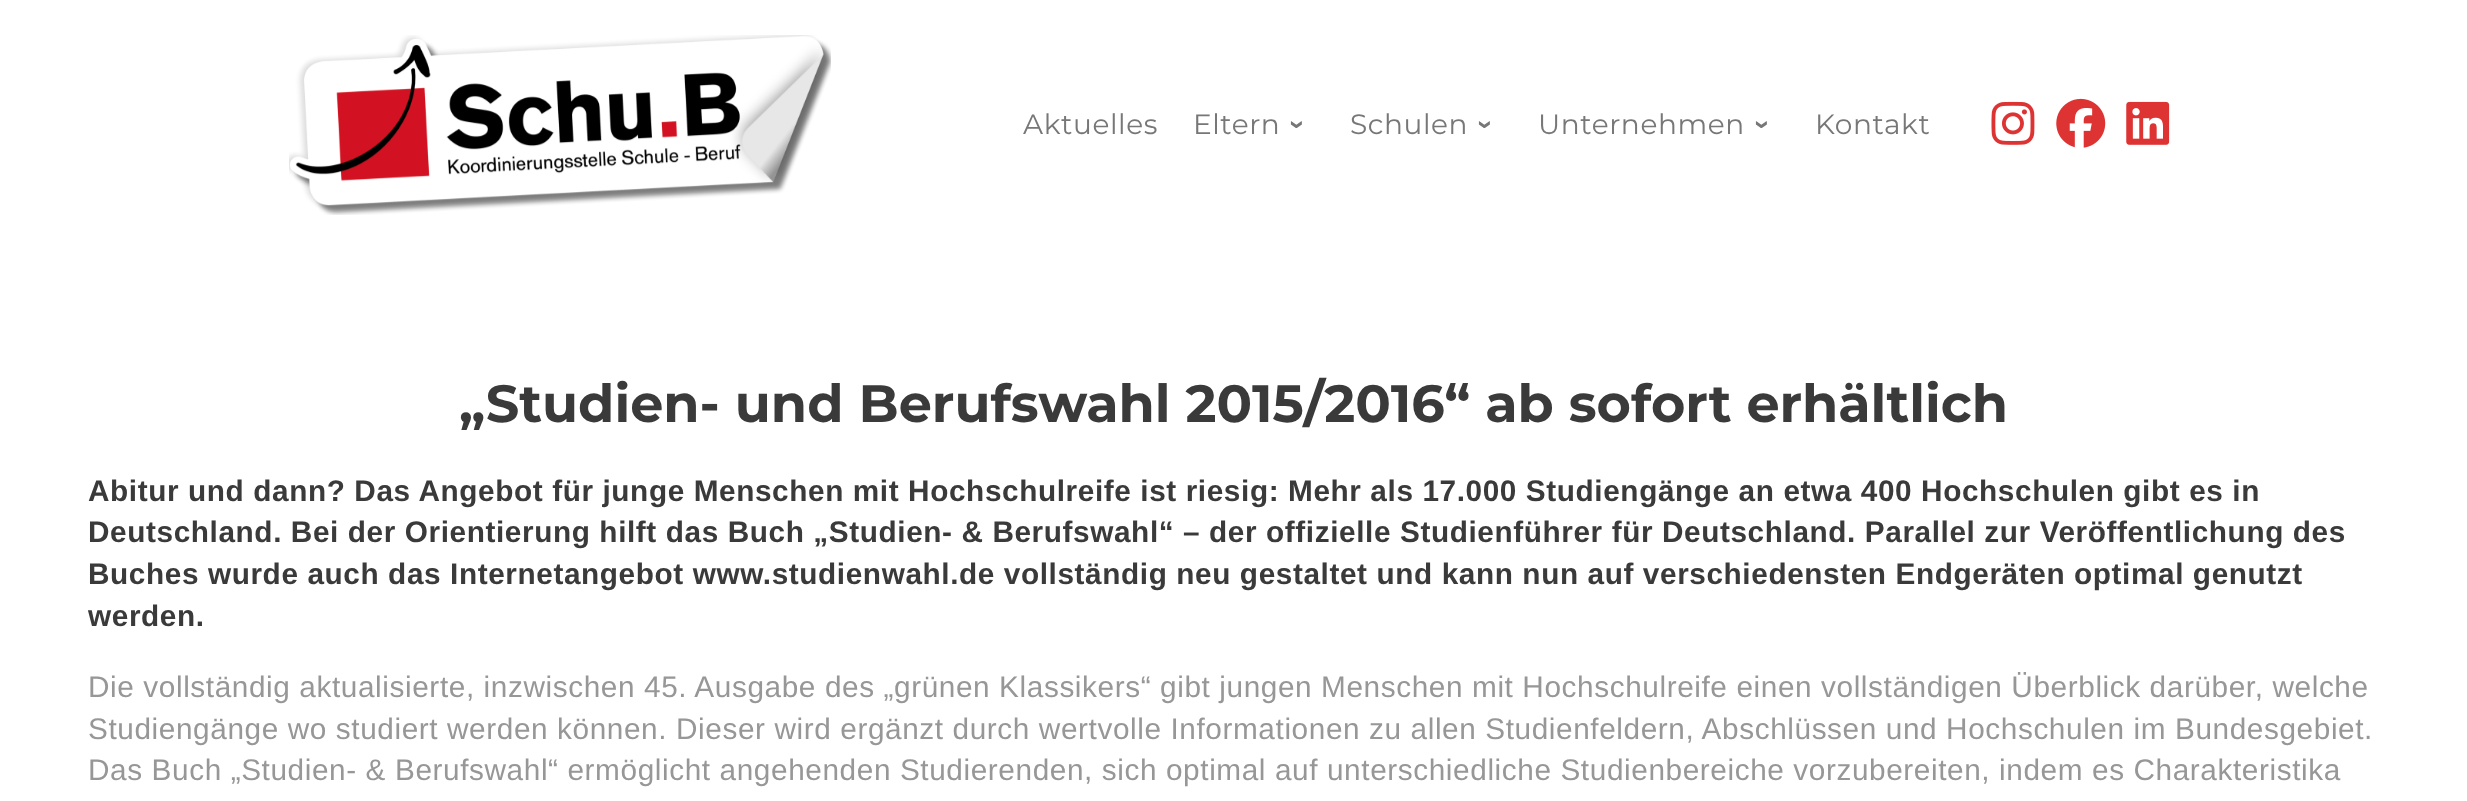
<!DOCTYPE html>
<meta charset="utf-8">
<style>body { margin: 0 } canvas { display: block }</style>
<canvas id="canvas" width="2467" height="801"></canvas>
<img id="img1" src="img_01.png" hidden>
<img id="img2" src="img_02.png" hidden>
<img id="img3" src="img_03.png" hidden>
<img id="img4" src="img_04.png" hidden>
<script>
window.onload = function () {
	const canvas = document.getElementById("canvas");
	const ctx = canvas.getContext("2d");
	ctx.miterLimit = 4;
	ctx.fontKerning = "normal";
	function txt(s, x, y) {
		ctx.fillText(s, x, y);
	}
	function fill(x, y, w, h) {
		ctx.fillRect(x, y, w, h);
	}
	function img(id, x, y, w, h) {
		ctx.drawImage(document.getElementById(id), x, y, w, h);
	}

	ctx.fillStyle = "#FFFFFF";
	fill(0, 0, 2467, 801);
	img("img1", 289, 35, 542, 180);
	img("img2", 1991, 101, 44, 44);
	img("img3", 2056, 98, 50, 50);
	img("img4", 2126, 101, 44, 44);
	ctx.letterSpacing = "0.6px";
	ctx.font = "100 28px Montserrat";
	ctx.fillStyle = "#777777";
	txt("Aktuelles", 1023, 134);
	txt("Eltern", 1193, 134);
	ctx.font = "bold 28px Liberation Sans";
	ctx.save();
	ctx.translate(1289, 120);
	ctx.rotate(90 * Math.PI / 180);
	ctx.fillText("›", 0, 0);
	ctx.restore();
	ctx.font = "100 28px Montserrat";
	txt("Schulen", 1350, 134);
	ctx.font = "bold 28px Liberation Sans";
	ctx.save();
	ctx.translate(1477, 120);
	ctx.rotate(90 * Math.PI / 180);
	ctx.fillText("›", 0, 0);
	ctx.restore();
	ctx.font = "100 28px Montserrat";
	txt("Unternehmen", 1538, 134);
	ctx.font = "bold 28px Liberation Sans";
	ctx.save();
	ctx.translate(1754, 120);
	ctx.rotate(90 * Math.PI / 180);
	ctx.fillText("›", 0, 0);
	ctx.restore();
	ctx.font = "100 28px Montserrat";
	txt("Kontakt", 1815, 134);
	ctx.letterSpacing = "0px";
	ctx.font = "bold 52.5px Montserrat";
	ctx.fillStyle = "#3A3A3A";
	txt("„Studien- und Berufswahl 2015/2016“ ab sofort erhältlich", 459, 422);
	ctx.letterSpacing = "0.6px";
	ctx.font = "bold 29.75px Liberation Sans";
	txt("Abitur und dann? Das Angebot für junge Menschen mit Hochschulreife ist riesig: Mehr als 17.000 Studiengänge an etwa 400 Hochschulen gibt es in", 88, 501);
	txt("Deutschland. Bei der Orientierung hilft das Buch „Studien- & Berufswahl“ – der offizielle Studienführer für Deutschland. Parallel zur Veröffentlichung des", 88, 542);
	txt("Buches wurde auch das Internetangebot www.studienwahl.de vollständig neu gestaltet und kann nun auf verschiedensten Endgeräten optimal genutzt", 88, 584);
	txt("werden.", 88, 626);
	ctx.font = "29.75px Liberation Sans";
	ctx.fillStyle = "#989797";
	txt("Die vollständig aktualisierte, inzwischen 45. Ausgabe des „grünen Klassikers“ gibt jungen Menschen mit Hochschulreife einen vollständigen Überblick darüber, welche", 88, 697);
	txt("Studiengänge wo studiert werden können. Dieser wird ergänzt durch wertvolle Informationen zu allen Studienfeldern, Abschlüssen und Hochschulen im Bundesgebiet.", 88, 739);
	txt("Das Buch „Studien- & Berufswahl“ ermöglicht angehenden Studierenden, sich optimal auf unterschiedliche Studienbereiche vorzubereiten, indem es Charakteristika", 88, 780);
};
</script>
